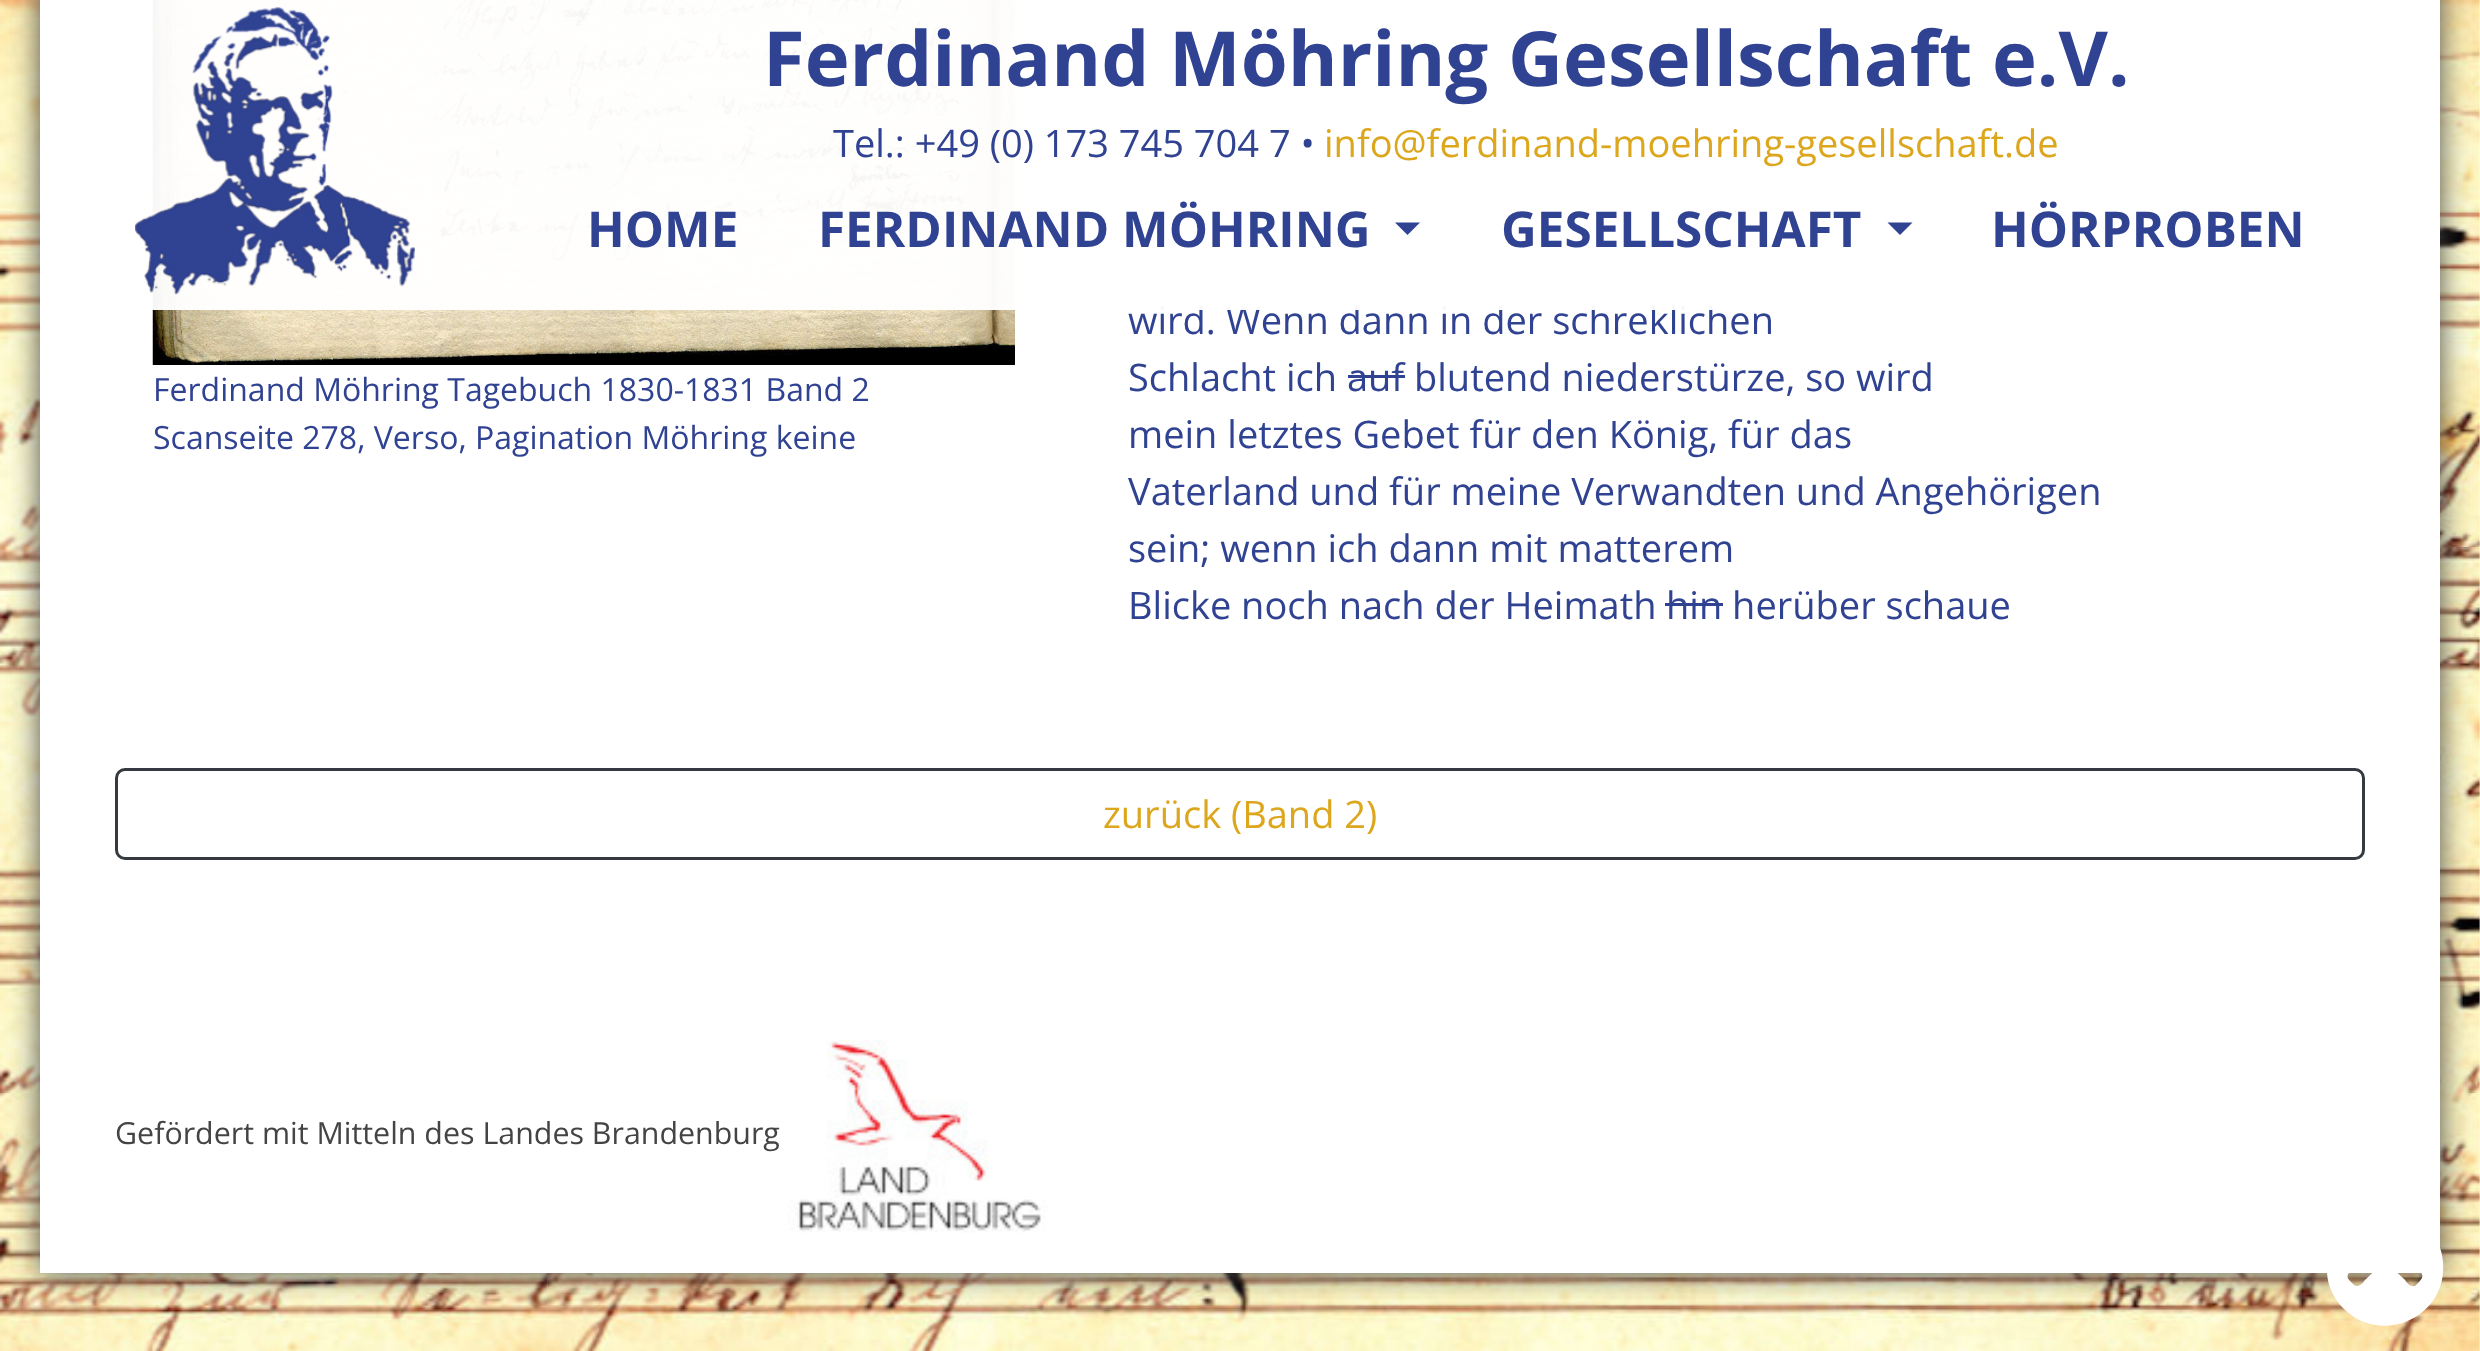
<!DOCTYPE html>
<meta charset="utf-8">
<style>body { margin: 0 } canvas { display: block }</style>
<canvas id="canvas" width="2480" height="1351"></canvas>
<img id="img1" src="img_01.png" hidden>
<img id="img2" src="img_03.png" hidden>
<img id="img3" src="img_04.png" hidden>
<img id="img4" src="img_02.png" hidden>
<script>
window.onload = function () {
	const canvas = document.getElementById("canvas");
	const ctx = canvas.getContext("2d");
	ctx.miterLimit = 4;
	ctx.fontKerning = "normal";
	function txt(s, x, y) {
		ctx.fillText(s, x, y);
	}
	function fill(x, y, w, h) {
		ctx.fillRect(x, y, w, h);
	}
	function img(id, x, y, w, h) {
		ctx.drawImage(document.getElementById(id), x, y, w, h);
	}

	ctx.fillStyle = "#FFFFFF";
	fill(0, 0, 2480, 1351);
	img("img1", 0, 0, 2480, 1351);
	ctx.fillStyle = "#444444";
	ctx.filter = "blur(15px)";
	ctx.beginPath();
	ctx.rect(40, -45, 2400, 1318);
	ctx.fill();
	ctx.filter = "none";
	ctx.fillStyle = "#FFFFFF";
	fill(40, 0, 2400, 1273);
	ctx.fillStyle = "#304292";
	ctx.beginPath();
	ctx.moveTo(1887.5, 222.5);
	ctx.lineTo(1912.5, 222.5);
	ctx.lineTo(1900, 235);
	ctx.closePath();
	ctx.fill();
	img("img2", 152, 0, 863, 365);
	fill(1348, 375, 57, 3);
	fill(1665, 603, 58, 3);
	ctx.beginPath();
	ctx.roundRect(116.5, 769.5, 2247, 89, 8.5);
	ctx.strokeStyle = "#343A40";
	ctx.lineWidth = 3;
	ctx.stroke();
	img("img3", 788, 1040, 259, 193);
	ctx.fillStyle = "#FFFFFF";
	ctx.beginPath();
	ctx.moveTo(2344, 1309);
	ctx.bezierCurveTo(2334, 1299, 2328, 1287, 2327, 1273);
	ctx.bezierCurveTo(2322, 1219, 2387, 1188, 2426, 1226);
	ctx.bezierCurveTo(2436, 1236, 2442, 1248, 2443, 1262);
	ctx.bezierCurveTo(2448, 1316, 2383, 1347, 2344, 1309);
	ctx.closePath();
	ctx.moveTo(2381, 1241);
	ctx.lineTo(2349, 1273);
	ctx.bezierCurveTo(2345, 1277, 2350, 1281, 2353, 1284);
	ctx.bezierCurveTo(2358, 1289, 2362, 1284, 2365, 1280);
	ctx.lineTo(2385, 1261);
	ctx.lineTo(2405, 1280);
	ctx.bezierCurveTo(2407, 1283, 2410, 1287, 2415, 1286);
	ctx.lineTo(2419, 1282);
	ctx.bezierCurveTo(2426, 1275, 2421, 1273, 2415, 1267);
	ctx.lineTo(2394, 1246);
	ctx.bezierCurveTo(2391, 1243, 2386, 1236, 2381, 1241);
	ctx.closePath();
	ctx.fill();
	ctx.font = "bold 49.4px Open Sans";
	ctx.fillStyle = "#304292";
	txt("HÖRPROBEN", 1991, 247);
	ctx.font = "32px Open Sans";
	txt("Ferdinand Möhring Tagebuch 1830-1831 Band 2", 153, 401);
	txt("Scanseite 278, Verso, Pagination Möhring keine", 153, 449);
	ctx.font = "38px Open Sans";
	txt("wird. Wenn dann in der schreklichen", 1128, 334);
	ctx.fillStyle = "rgba(255, 255, 255, 0.96)";
	fill(152, 0, 1561, 310);
	ctx.font = "bold 49.4px Open Sans";
	ctx.fillStyle = "#304292";
	txt("GESELLSCHAFT", 1501, 247);
	ctx.beginPath();
	ctx.moveTo(1395, 222.5);
	ctx.lineTo(1420, 222.5);
	ctx.lineTo(1407.5, 235);
	ctx.closePath();
	ctx.fill();
	txt("FERDINAND MÖHRING", 818, 247);
	txt("HOME", 587, 247);
	ctx.font = "38px Open Sans";
	ctx.fillStyle = "#DCA71D";
	txt("info@ferdinand-moehring-gesellschaft.de", 1324, 157);
	ctx.fillStyle = "#304292";
	txt("Tel.: +49 (0) 173 745 704 7 •", 833, 157);
	ctx.font = "bold 76px Open Sans";
	txt("Ferdinand Möhring Gesellschaft e.V.", 763, 86);
	img("img4", 135, 7, 280, 288);
	ctx.font = "38px Open Sans";
	txt("Schlacht ich auf blutend niederstürze, so wird", 1128, 391);
	txt("mein letztes Gebet für den König, für das", 1128, 448);
	txt("Vaterland und für meine Verwandten und Angehörigen", 1128, 505);
	txt("sein; wenn ich dann mit matterem", 1128, 562);
	txt("Blicke noch nach der Heimath", 1128, 619);
	txt("hin herüber schaue", 1666, 619);
	ctx.fillStyle = "#DCA71D";
	txt("zurück (Band 2)", 1103, 828);
	ctx.font = "30.4px Open Sans";
	ctx.fillStyle = "#444444";
	txt("Gefördert mit Mitteln des Landes Brandenburg", 115, 1144);
};
</script>
